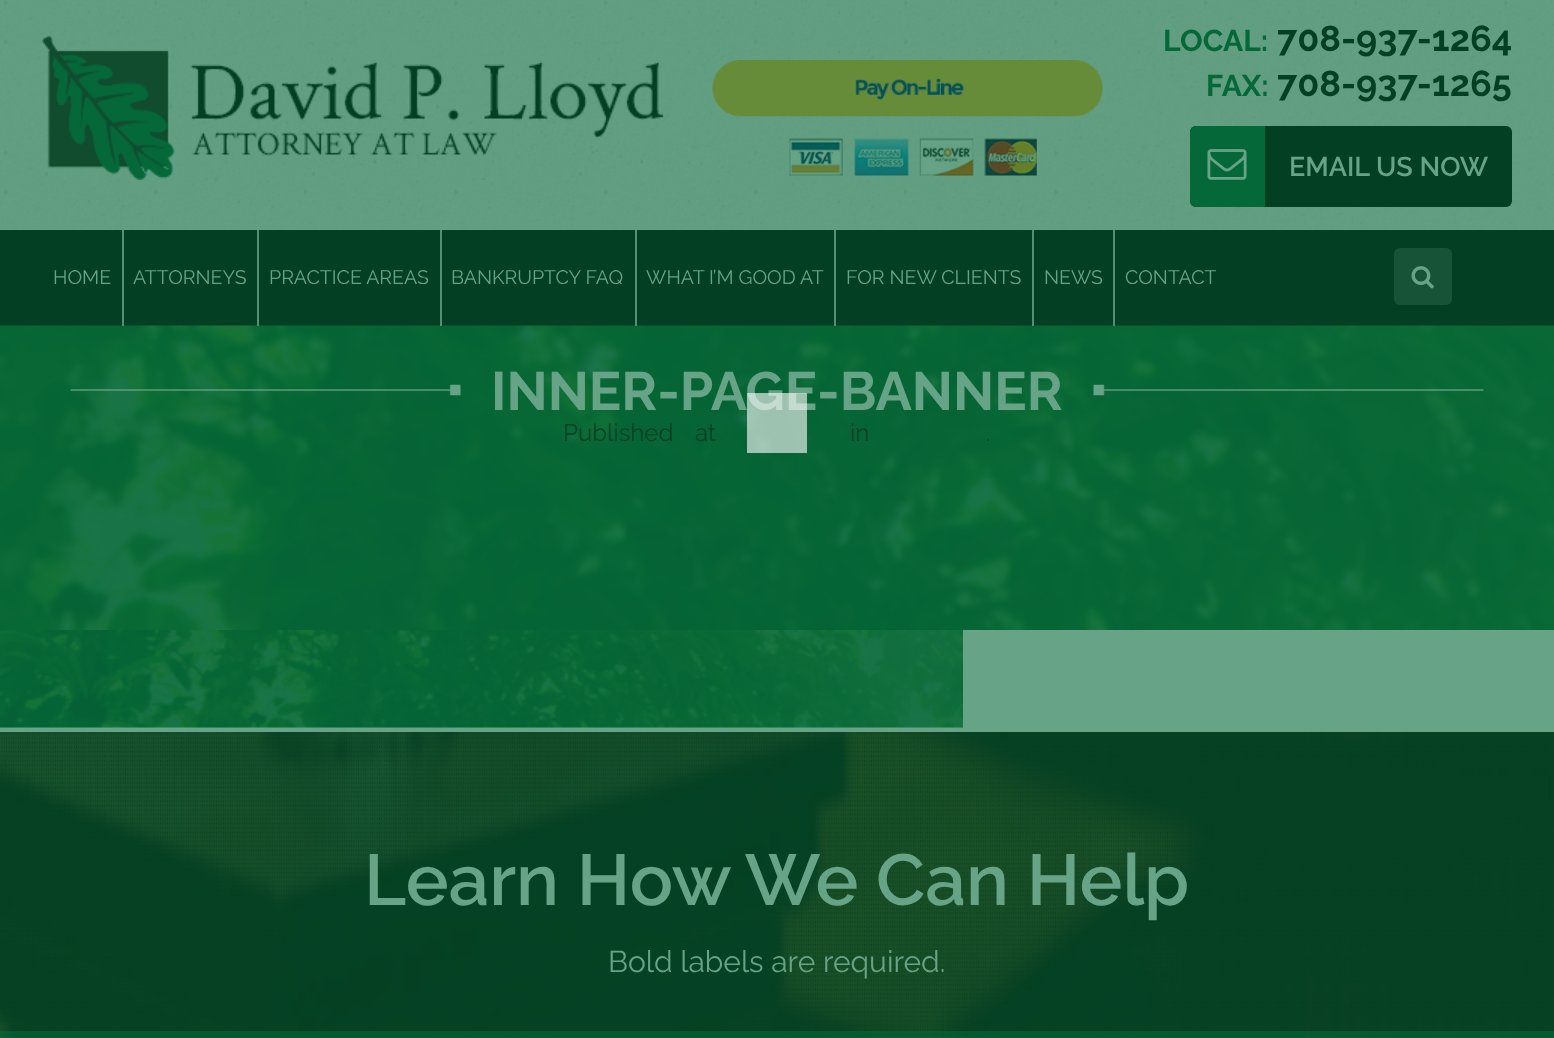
<!DOCTYPE html>
<meta charset="utf-8">
<style>body { margin: 0 } canvas { display: block }</style>
<canvas id="canvas" width="1554" height="1038"></canvas>
<img id="img1" src="img_01.png" hidden>
<img id="img2" src="img_02.png" hidden>
<img id="img3" src="img_03.png" hidden>
<img id="img4" src="img_04.png" hidden>
<img id="img5" src="img_06.png" hidden>
<img id="img6" src="img_05.png" hidden>
<img id="img7" src="img_07.png" hidden>
<img id="img8" src="img_08.png" hidden>
<img id="img9" src="img_09.png" hidden>
<img id="img10" src="img_10.png" hidden>
<script>
window.onload = function () {
	const canvas = document.getElementById("canvas");
	const ctx = canvas.getContext("2d");
	ctx.miterLimit = 4;
	ctx.fontKerning = "normal";
	function txt(s, x, y) {
		ctx.fillText(s, x, y);
	}
	function fill(x, y, w, h) {
		ctx.fillRect(x, y, w, h);
	}
	function round(x, y, w, h, r) {
		ctx.beginPath();
		ctx.roundRect(x, y, w, h, r);
		ctx.fill();
	}
	function img(id, x, y, w, h) {
		ctx.drawImage(document.getElementById(id), x, y, w, h);
	}

	ctx.fillStyle = "#67A386";
	fill(0, 0, 1554, 1038);
	img("img1", 0, 0, 1554, 230);
	img("img2", 42, 36, 627, 144);
	img("img3", 712, 60, 391, 116);
	ctx.fillStyle = "#033F23";
	round(1190, 126, 322, 81, 6);
	ctx.fillStyle = "#056839";
	ctx.beginPath();
	ctx.roundRect(1190, 126, 75, 81, [6, 0, 0, 6]);
	ctx.fill();
	img("img4", 1207, 149, 40, 31);
	ctx.fillStyle = "#033F23";
	fill(0, 230, 1554, 96);
	img("img5", 0, 325, 1554, 305);
	ctx.fillStyle = "#538F72";
	fill(122, 230, 2, 96);
	fill(257, 230, 2, 96);
	fill(440, 230, 2, 96);
	fill(635, 230, 2, 96);
	fill(834, 230, 2, 96);
	fill(1032, 230, 2, 96);
	fill(1113, 230, 2, 96);
	ctx.fillStyle = "#175337";
	round(1394, 248, 58, 57, 6);
	img("img6", 1411, 266, 23, 23);
	img("img7", 70, 384, 391, 12);
	img("img8", 1093, 384, 391, 12);
	img("img9", 0, 630, 963, 98);
	img("img10", 0, 732, 1554, 306);
	ctx.fillStyle = "rgba(255, 255, 255, 0.61)";
	fill(747, 413, 20, 21);
	fill(767, 413, 19, 21);
	fill(786, 413, 21, 21);
	fill(747, 434, 20, 19);
	fill(767, 434, 19, 19);
	fill(786, 434, 21, 19);
	ctx.fillStyle = "rgba(5, 104, 57, 0.61)";
	fill(0, 1031, 1554, 7);
	ctx.font = "bold 30px Raleway";
	ctx.fillStyle = "#056839";
	txt("LOCAL:", 1163, 51);
	ctx.font = "bold 36px Raleway";
	ctx.fillStyle = "#033F23";
	txt("708-937-1264", 1277, 51);
	ctx.font = "bold 30px Raleway";
	ctx.fillStyle = "#056839";
	txt("FAX:", 1206, 96);
	ctx.font = "bold 36px Raleway";
	ctx.fillStyle = "#033F23";
	txt("708-937-1265", 1277, 96);
	ctx.font = "600 27px Raleway";
	ctx.fillStyle = "#67A386";
	txt("EMAIL US NOW", 1289, 176);
	ctx.font = "19.5px Raleway";
	txt("HOME", 53, 284);
	txt("ATTORNEYS", 133, 284);
	txt("PRACTICE AREAS", 269, 284);
	ctx.fillStyle = "rgba(3, 63, 35, 0.5)";
	ctx.beginPath();
	ctx.moveTo(418.5, 273);
	ctx.lineTo(430.5, 273);
	ctx.lineTo(424.5, 279);
	ctx.closePath();
	ctx.fill();
	ctx.fillStyle = "#67A386";
	txt("BANKRUPTCY FAQ", 451, 284);
	txt("WHAT I’M GOOD AT", 646, 284);
	txt("FOR NEW CLIENTS", 846, 284);
	txt("NEWS", 1044, 284);
	txt("CONTACT", 1125, 284);
	ctx.font = "bold 54px Raleway";
	txt("INNER-PAGE-BANNER", 491, 410);
	ctx.font = "24px Raleway";
	ctx.fillStyle = "#033F23";
	txt("Published", 563, 441);
	txt("at", 695, 441);
	txt("in", 850, 441);
	txt(".", 986, 441);
	ctx.font = "600 72px Raleway";
	ctx.fillStyle = "#67A386";
	txt("Learn How We Can Help", 364, 905);
	ctx.font = "30px Raleway";
	txt("Bold labels are required.", 608, 972);
	ctx.fillStyle = "rgba(255, 255, 255, 0.61)";
	fill(747, 393, 20, 20);
	fill(767, 393, 19, 20);
	fill(786, 393, 21, 20);
};
</script>
